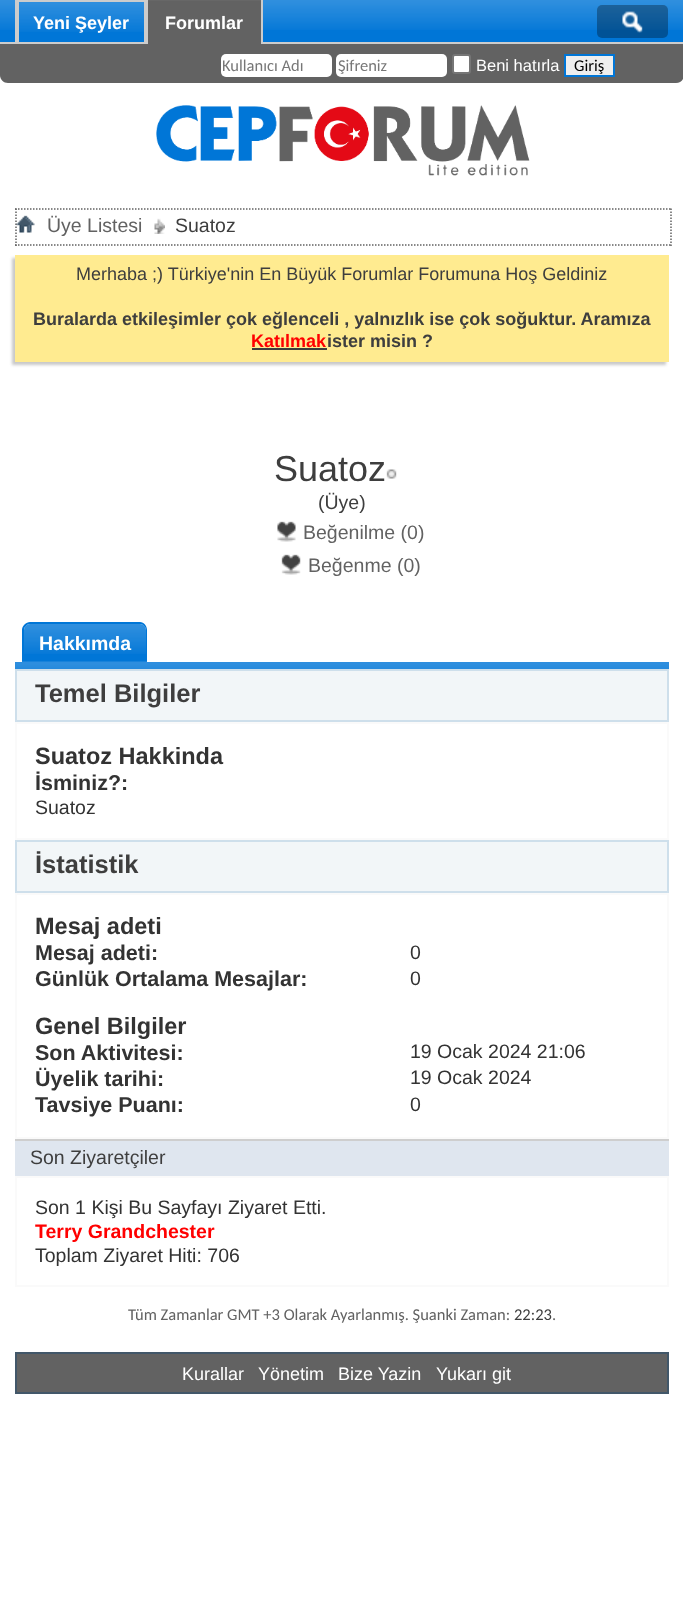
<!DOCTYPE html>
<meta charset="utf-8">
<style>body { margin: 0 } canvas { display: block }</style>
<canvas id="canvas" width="683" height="1624"></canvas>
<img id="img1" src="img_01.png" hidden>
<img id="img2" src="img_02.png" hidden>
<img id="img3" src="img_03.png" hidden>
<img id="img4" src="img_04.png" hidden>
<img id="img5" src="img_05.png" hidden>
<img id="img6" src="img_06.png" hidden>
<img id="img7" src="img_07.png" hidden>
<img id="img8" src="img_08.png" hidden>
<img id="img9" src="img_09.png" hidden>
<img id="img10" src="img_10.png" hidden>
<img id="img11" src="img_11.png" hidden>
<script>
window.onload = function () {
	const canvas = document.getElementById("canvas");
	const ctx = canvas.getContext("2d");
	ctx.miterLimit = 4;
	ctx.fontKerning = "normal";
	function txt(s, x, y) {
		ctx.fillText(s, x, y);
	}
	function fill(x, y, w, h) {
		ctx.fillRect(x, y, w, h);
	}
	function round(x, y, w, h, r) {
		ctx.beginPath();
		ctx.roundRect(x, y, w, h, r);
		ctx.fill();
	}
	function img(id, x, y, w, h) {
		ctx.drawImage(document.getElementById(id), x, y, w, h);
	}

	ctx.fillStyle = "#FFFFFF";
	fill(0, 0, 683, 1624);
	ctx.fillStyle = "#626262";
	ctx.beginPath();
	ctx.moveTo(0, 0);
	ctx.lineTo(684, 0);
	ctx.lineTo(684, 75);
	ctx.bezierCurveTo(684, 79.5, 680.5, 83, 676, 83);
	ctx.lineTo(8, 83);
	ctx.bezierCurveTo(3.5, 83, 0, 79.5, 0, 75);
	ctx.closePath();
	ctx.fill();
	ctx.fillStyle = "#0076D7";
	fill(0, 0, 683, 42);
	img("img1", 0, 0, 683, 30);
	ctx.fillStyle = "#CCCCCC";
	fill(144, 0, 2, 44);
	fill(15, 0, 2, 44);
	ctx.fillStyle = "#0076D7";
	fill(19, 2, 125, 28);
	img("img2", 19, 2, 125, 30);
	ctx.fillStyle = "#CCCCCC";
	fill(17, 0, 127, 2);
	fill(17, 0, 2, 44);
	fill(261, 0, 2, 42);
	fill(0, 42, 683, 2);
	ctx.fillStyle = "#626262";
	fill(148, 1, 113, 43);
	ctx.fillStyle = "#676767";
	fill(146, 0, 115, 1);
	ctx.fillStyle = "#CCCCCC";
	fill(146, 0, 2, 44);
	ctx.fillStyle = "rgba(0, 0, 0, 0.3)";
	round(597, 5, 71, 33, 5);
	img("img3", 622, 11, 21, 22);
	ctx.fillStyle = "#FFFFFF";
	round(221, 54, 111, 23, 5);
	round(336, 54, 111, 23, 5);
	ctx.beginPath();
	ctx.roundRect(453, 55, 17, 18, 2);
	ctx.fill();
	ctx.strokeStyle = "#767676";
	ctx.lineWidth = 2;
	ctx.stroke();
	ctx.fillStyle = "#EFEFEF";
	ctx.beginPath();
	ctx.rect(565, 55, 49, 21);
	ctx.fill();
	ctx.strokeStyle = "#0076D7";
	ctx.stroke();
	img("img4", 156, 105, 374, 71);
	ctx.beginPath();
	ctx.moveTo(15, 209);
	ctx.lineTo(672, 209);
	ctx.strokeStyle = "#626262";
	ctx.lineWidth = 1.5;
	ctx.setLineDash([1.5, 1.5]);
	ctx.stroke();
	ctx.beginPath();
	ctx.moveTo(671, 208.5);
	ctx.lineTo(671, 246);
	ctx.stroke();
	ctx.beginPath();
	ctx.moveTo(15, 245);
	ctx.lineTo(672, 245);
	ctx.stroke();
	ctx.beginPath();
	ctx.moveTo(16, 208.5);
	ctx.lineTo(16, 246);
	ctx.stroke();
	img("img5", 16, 215, 19, 18);
	img("img6", 154, 218, 11, 16);
	ctx.fillStyle = "#C8C8C8";
	ctx.filter = "blur(1.5px)";
	ctx.beginPath();
	ctx.rect(12, 258, 654, 107);
	ctx.fill();
	ctx.filter = "none";
	ctx.fillStyle = "#FFEB90";
	fill(15, 255, 654, 107);
	ctx.fillStyle = "#3E3E3E";
	fill(252, 348, 75, 2);
	img("img7", 386, 469, 11, 10);
	img("img8", 277, 521, 19, 21);
	img("img9", 281, 554, 20, 21);
	ctx.fillStyle = "#0076D7";
	ctx.beginPath();
	ctx.roundRect(24, 624, 122, 38, [6, 6, 0, 0]);
	ctx.fill();
	img("img10", 24, 624, 122, 30);
	ctx.beginPath();
	ctx.moveTo(30, 622);
	ctx.lineTo(140, 622);
	ctx.bezierCurveTo(144, 622, 147, 626, 147, 630);
	ctx.lineTo(147, 662);
	ctx.lineTo(22, 662);
	ctx.lineTo(22, 630);
	ctx.bezierCurveTo(22, 626, 26, 622, 30, 622);
	ctx.closePath();
	ctx.moveTo(30, 624);
	ctx.lineTo(140, 624);
	ctx.bezierCurveTo(143, 624, 146, 627, 146, 630);
	ctx.lineTo(146, 662);
	ctx.lineTo(24, 662);
	ctx.lineTo(24, 630);
	ctx.bezierCurveTo(24, 627, 27, 624, 30, 624);
	ctx.closePath();
	ctx.fill("evenodd");
	fill(15, 662, 654, 7);
	img("img11", 15, 661, 654, 8);
	ctx.fillStyle = "#F2F6F8";
	ctx.beginPath();
	ctx.rect(16, 670, 652, 51);
	ctx.fill();
	ctx.strokeStyle = "#CEDFEB";
	ctx.lineWidth = 2;
	ctx.setLineDash([]);
	ctx.stroke();
	ctx.strokeStyle = "#FAFAFA";
	ctx.strokeRect(16, 723, 652, 116);
	ctx.beginPath();
	ctx.rect(16, 841, 652, 51);
	ctx.fill();
	ctx.strokeStyle = "#CEDFEB";
	ctx.stroke();
	ctx.strokeStyle = "#FAFAFA";
	ctx.strokeRect(16, 894, 652, 244);
	ctx.fillStyle = "#DFE6EF";
	fill(15, 1141, 654, 35);
	ctx.fillStyle = "#CECECE";
	fill(15, 1139, 654, 2);
	ctx.strokeRect(16, 1177, 652, 109);
	ctx.fillStyle = "#626262";
	ctx.beginPath();
	ctx.rect(16, 1353, 652, 40);
	ctx.fill();
	ctx.strokeStyle = "#425769";
	ctx.stroke();
	ctx.font = "bold 18px Liberation Sans";
	ctx.fillStyle = "#FFFFFF";
	txt("Yeni Şeyler", 33, 29);
	txt("Forumlar", 165, 29);
	ctx.font = "16.5px Carlito";
	ctx.fillStyle = "#777777";
	txt("Kullanıcı Adı", 222, 71);
	txt("Şifreniz", 338, 71);
	ctx.font = "16.5px Liberation Sans";
	ctx.fillStyle = "#FFFFFF";
	txt("Beni hatırla", 476, 71);
	ctx.font = "16.5px Carlito";
	ctx.fillStyle = "#000000";
	txt("Giriş", 574, 71);
	ctx.font = "19.5px Liberation Sans";
	ctx.fillStyle = "#626262";
	txt("Üye Listesi", 47, 232);
	ctx.fillStyle = "#3E3E3E";
	txt("Suatoz", 175, 232);
	ctx.font = "18px Liberation Sans";
	txt("Merhaba ;) Türkiye'nin En Büyük Forumlar Forumuna Hoş Geldiniz", 76, 280);
	ctx.font = "bold 18px Liberation Sans";
	txt("Buralarda etkileşimler çok eğlenceli , yalnızlık ise çok soğuktur. Aramıza", 33, 325);
	ctx.fillStyle = "#FF0000";
	txt("Katılmak", 251, 347);
	ctx.fillStyle = "#3E3E3E";
	txt("ister misin ?", 327, 347);
	ctx.font = "36px Liberation Sans";
	txt("Suatoz", 274, 481);
	ctx.font = "19.5px Liberation Sans";
	txt("(Üye)", 318, 509);
	ctx.fillStyle = "#626262";
	txt("Beğenilme (0)", 303, 539);
	txt("Beğenme (0)", 308, 572);
	ctx.font = "bold 19.5px Liberation Sans";
	ctx.fillStyle = "#FFFFFF";
	txt("Hakkımda", 39, 650);
	ctx.font = "bold 25.5px Liberation Sans";
	ctx.fillStyle = "#3E3E3E";
	txt("Temel Bilgiler", 35, 702);
	ctx.font = "bold 23.5px Liberation Sans";
	ctx.fillStyle = "#333333";
	txt("Suatoz Hakkinda", 35, 764);
	ctx.font = "bold 21.5px Liberation Sans";
	txt("İsminiz?:", 35, 790);
	ctx.font = "19.5px Liberation Sans";
	txt("Suatoz", 35, 814);
	ctx.font = "bold 25.5px Liberation Sans";
	ctx.fillStyle = "#3E3E3E";
	txt("İstatistik", 35, 873);
	ctx.font = "bold 23.5px Liberation Sans";
	ctx.fillStyle = "#333333";
	txt("Mesaj adeti", 35, 934);
	ctx.font = "bold 21.5px Liberation Sans";
	txt("Mesaj adeti:", 35, 960);
	ctx.font = "19.5px Liberation Sans";
	txt("0", 410, 959);
	ctx.font = "bold 21.5px Liberation Sans";
	txt("Günlük Ortalama Mesajlar:", 35, 986);
	ctx.font = "19.5px Liberation Sans";
	txt("0", 410, 985);
	ctx.font = "bold 23.5px Liberation Sans";
	txt("Genel Bilgiler", 35, 1034);
	ctx.font = "bold 21.5px Liberation Sans";
	txt("Son Aktivitesi:", 35, 1060);
	ctx.font = "19.5px Liberation Sans";
	txt("19 Ocak 2024 21:06", 410, 1058);
	ctx.font = "bold 21.5px Liberation Sans";
	txt("Üyelik tarihi:", 35, 1086);
	ctx.font = "19.5px Liberation Sans";
	txt("19 Ocak 2024", 410, 1084);
	ctx.font = "bold 21.5px Liberation Sans";
	txt("Tavsiye Puanı:", 35, 1112);
	ctx.font = "19.5px Liberation Sans";
	txt("0", 410, 1111);
	ctx.fillStyle = "#3E3E3E";
	txt("Son Ziyaretçiler", 30, 1164);
	ctx.fillStyle = "#333333";
	txt("Son 1 Kişi Bu Sayfayı Ziyaret Etti.", 35, 1214);
	ctx.font = "bold 19.5px Liberation Sans";
	ctx.fillStyle = "#FF0000";
	txt("Terry Grandchester", 35, 1238);
	ctx.font = "19.5px Liberation Sans";
	ctx.fillStyle = "#333333";
	txt("Toplam Ziyaret Hiti: 706", 35, 1262);
	ctx.font = "16.5px Carlito";
	ctx.fillStyle = "#626262";
	txt("Tüm Zamanlar GMT +3 Olarak Ayarlanmış. Şuanki Zaman:", 128, 1320);
	ctx.fillStyle = "#3E3E3E";
	txt("22:23", 514, 1320);
	ctx.fillStyle = "#626262";
	txt(".", 552, 1320);
	ctx.font = "18px Liberation Sans";
	ctx.fillStyle = "#FFFFFF";
	txt("Kurallar", 182, 1380);
	txt("Yönetim", 258, 1380);
	txt("Bize Yazin", 338, 1380);
	txt("Yukarı git", 436, 1380);
};
</script>
